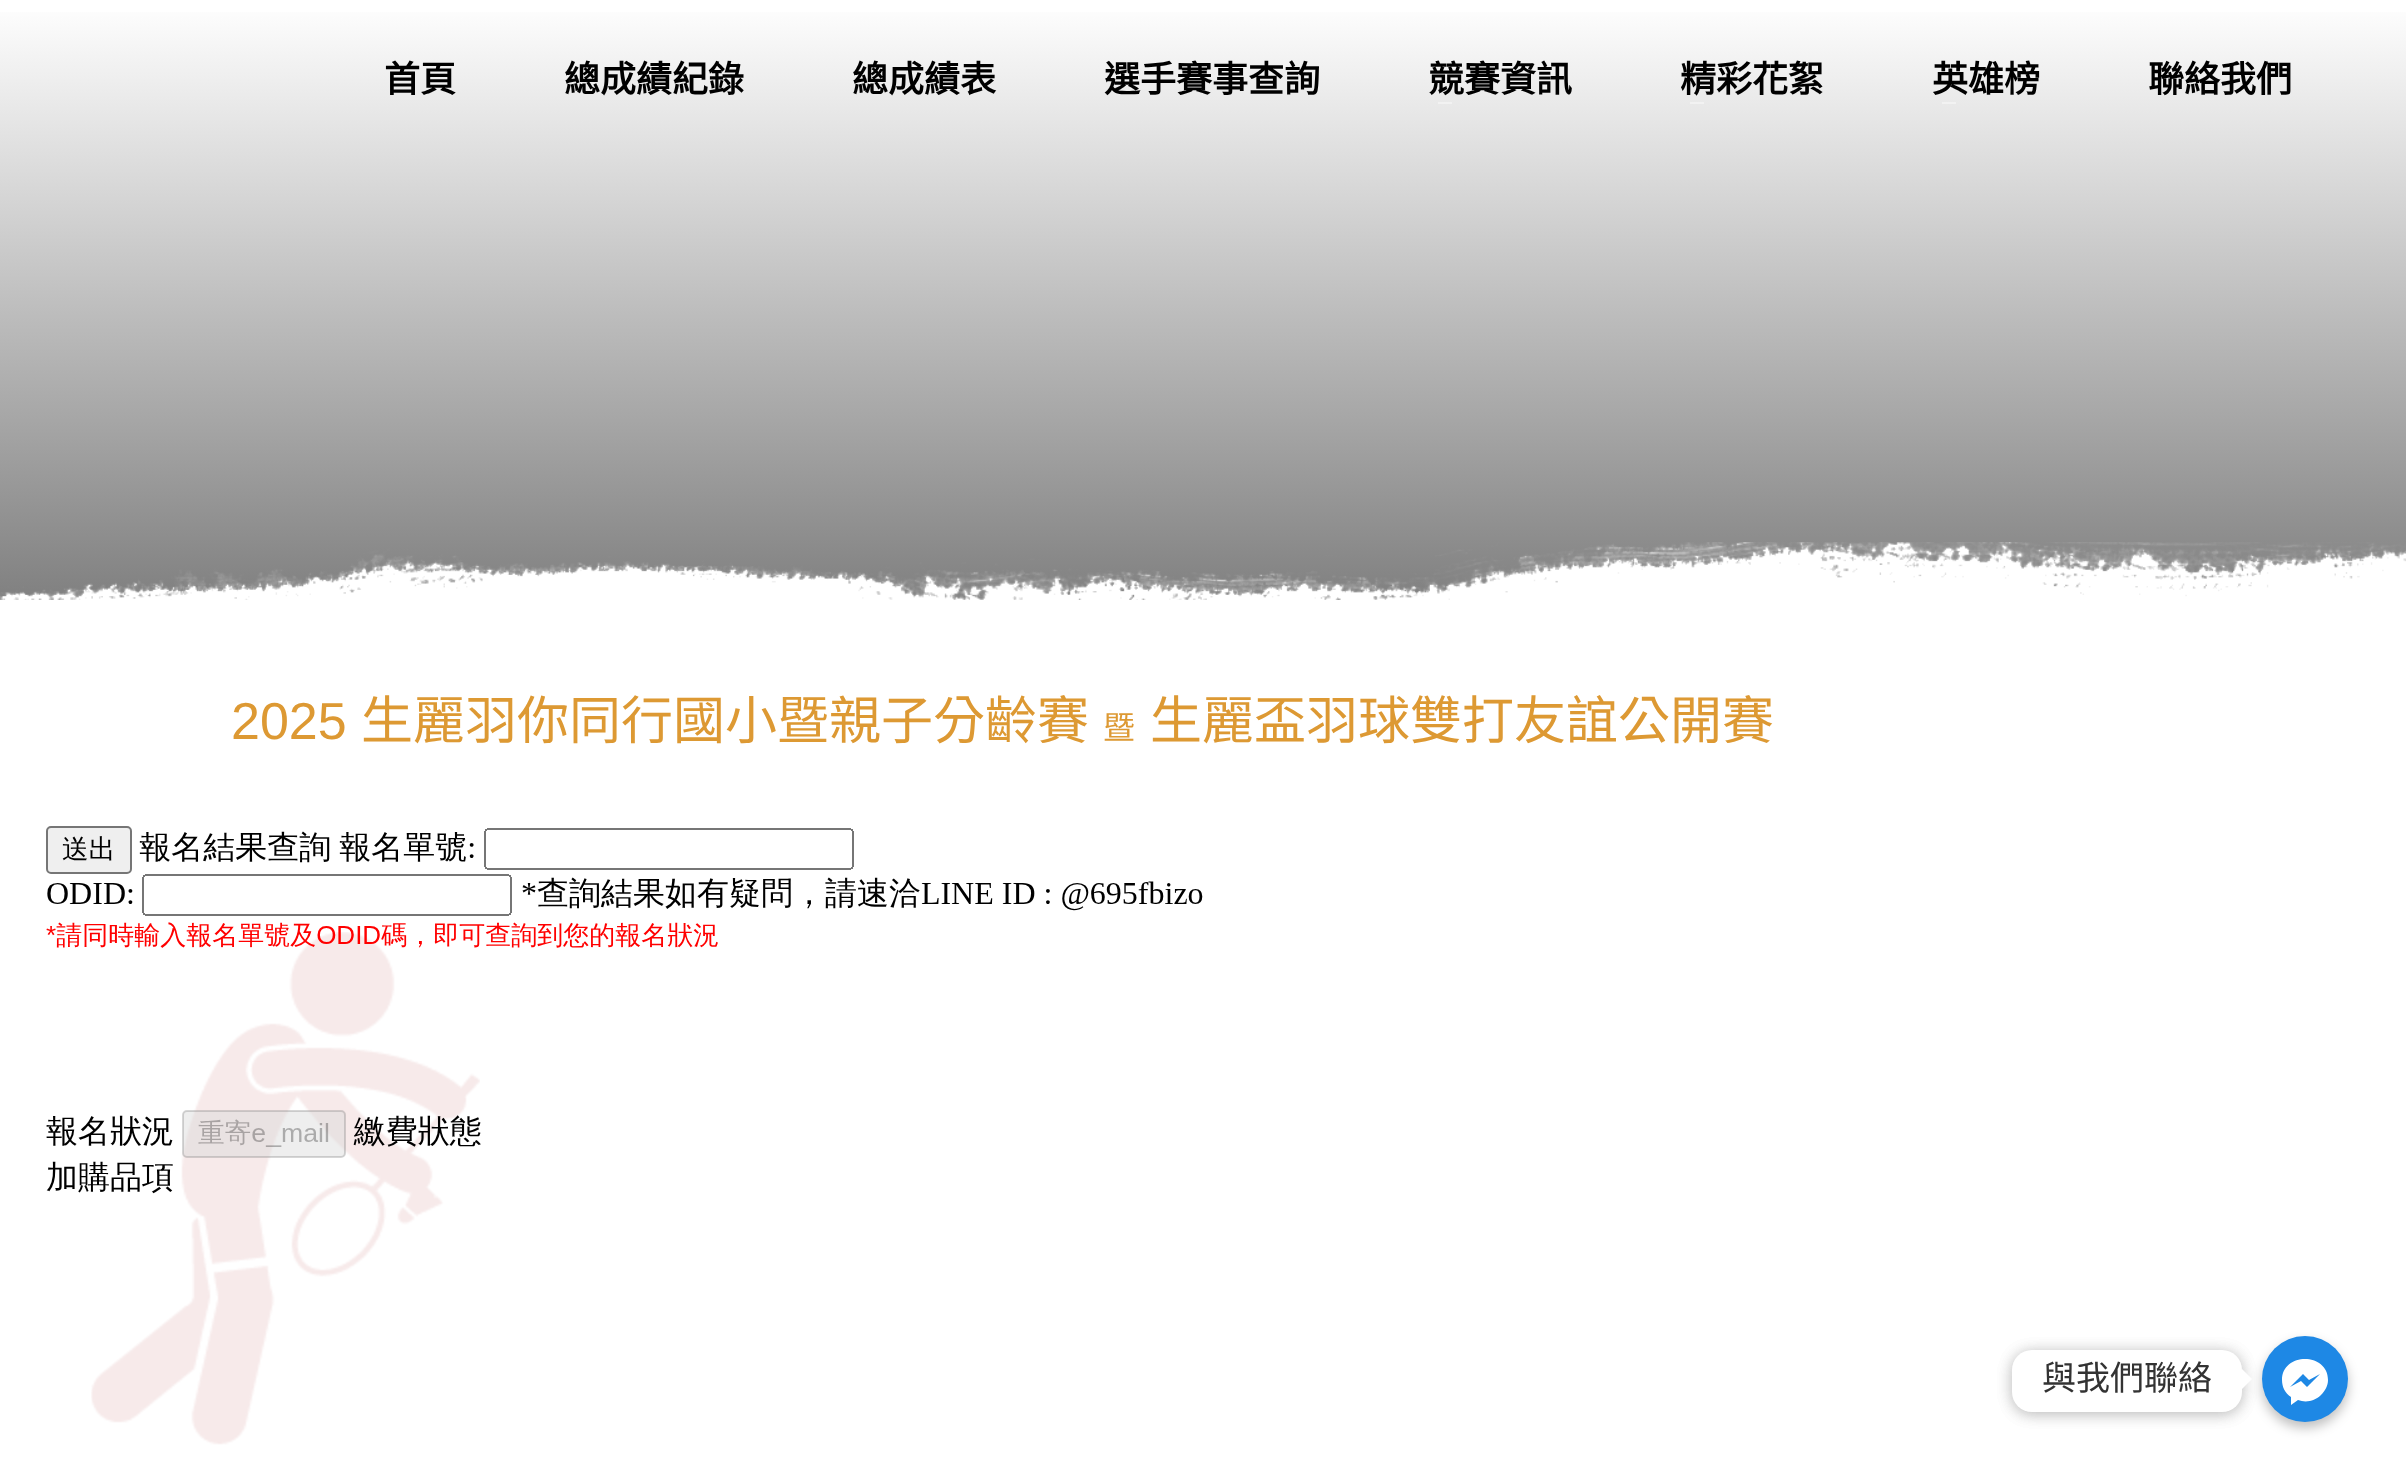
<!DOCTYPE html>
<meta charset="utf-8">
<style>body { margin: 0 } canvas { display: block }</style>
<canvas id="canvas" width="2406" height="1472"></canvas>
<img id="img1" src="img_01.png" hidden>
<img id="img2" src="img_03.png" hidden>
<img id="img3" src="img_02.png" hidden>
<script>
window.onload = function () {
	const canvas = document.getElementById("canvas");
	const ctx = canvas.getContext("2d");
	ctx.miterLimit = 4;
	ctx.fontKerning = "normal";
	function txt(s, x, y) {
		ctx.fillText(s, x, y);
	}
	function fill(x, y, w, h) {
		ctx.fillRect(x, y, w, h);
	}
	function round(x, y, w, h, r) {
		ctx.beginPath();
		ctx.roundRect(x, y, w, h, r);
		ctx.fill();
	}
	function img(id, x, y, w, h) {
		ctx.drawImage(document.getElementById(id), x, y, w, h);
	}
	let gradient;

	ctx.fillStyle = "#FFFFFF";
	fill(0, 0, 2406, 1472);
	gradient = ctx.createLinearGradient(1203, 0, 1203, 600);
	gradient.addColorStop(0, "#FFFFFF");
	gradient.addColorStop(1, "#808080");
	ctx.fillStyle = gradient;
	fill(0, 12, 2406, 588);
	ctx.fillStyle = "#F2F2F2";
	fill(1438, 102, 14, 2);
	fill(1690, 102, 14, 2);
	fill(1942, 102, 14, 2);
	img("img1", 0, 542, 2406, 58);
	img("img2", 91, 932, 389, 513);
	img("img3", 46, 826, 1157, 368);
	ctx.fillStyle = "rgba(0, 0, 0, 0.25)";
	ctx.filter = "blur(6px)";
	ctx.beginPath();
	ctx.roundRect(2262, 1342, 86, 86, 43);
	ctx.fill();
	ctx.filter = "none";
	ctx.fillStyle = "#1E88E5";
	ctx.beginPath();
	ctx.arc(2305, 1379, 43, 0, Math.PI * 2);
	ctx.fill();
	ctx.fillStyle = "rgba(0, 0, 0, 0.15)";
	ctx.filter = "blur(7.5px)";
	ctx.beginPath();
	ctx.roundRect(2012, 1352, 230, 62, 20);
	ctx.fill();
	ctx.filter = "none";
	ctx.fillStyle = "#FFFFFF";
	ctx.beginPath();
	ctx.moveTo(2282, 1380);
	ctx.bezierCurveTo(2282, 1352, 2328, 1352, 2328, 1380);
	ctx.bezierCurveTo(2328, 1386, 2325, 1391, 2321, 1395);
	ctx.bezierCurveTo(2315, 1401, 2306, 1403, 2298, 1400);
	ctx.lineTo(2291, 1405);
	ctx.lineTo(2291, 1397);
	ctx.bezierCurveTo(2285, 1393, 2282, 1387, 2282, 1380);
	ctx.closePath();
	ctx.moveTo(2301, 1381);
	ctx.lineTo(2307, 1387);
	ctx.lineTo(2320, 1374);
	ctx.lineTo(2309, 1380);
	ctx.lineTo(2303, 1374);
	ctx.lineTo(2290, 1387);
	ctx.closePath();
	ctx.fill("evenodd");
	ctx.fillStyle = "rgba(0, 0, 0, 0.15)";
	ctx.filter = "blur(7.5px)";
	ctx.beginPath();
	ctx.roundRect(2012, 1352, 230, 62, 20);
	ctx.fill();
	ctx.filter = "none";
	ctx.fillStyle = "#FFFFFF";
	round(2012, 1350, 230, 62, 20);
	ctx.beginPath();
	ctx.moveTo(2242, 1389);
	ctx.lineTo(2242, 1369);
	ctx.lineTo(2252, 1379);
	ctx.closePath();
	ctx.fill();
	ctx.font = "bold 36px Noto Sans CJK TC";
	ctx.fillStyle = "#000000";
	txt("首頁", 384, 92);
	txt("總成績紀錄", 564, 92);
	txt("總成績表", 852, 92);
	txt("選手賽事查詢", 1104, 92);
	txt("競賽資訊", 1428, 92);
	txt("精彩花絮", 1680, 92);
	txt("英雄榜", 1932, 92);
	txt("聯絡我們", 2148, 92);
	ctx.font = "52px Liberation Sans";
	ctx.fillStyle = "#DD9933";
	txt("2025", 231, 739);
	ctx.font = "52px Noto Sans CJK TC";
	txt("生麗羽你同行國小暨親子分齡賽", 361, 739);
	ctx.font = "32px Noto Sans CJK TC";
	txt("暨", 1103, 739);
	ctx.font = "52px Noto Sans CJK TC";
	txt("生麗盃羽球雙打友誼公開賽", 1150, 739);
	ctx.font = "34px Noto Sans CJK TC";
	ctx.fillStyle = "#333333";
	txt("與我們聯絡", 2042, 1390);
};
</script>
